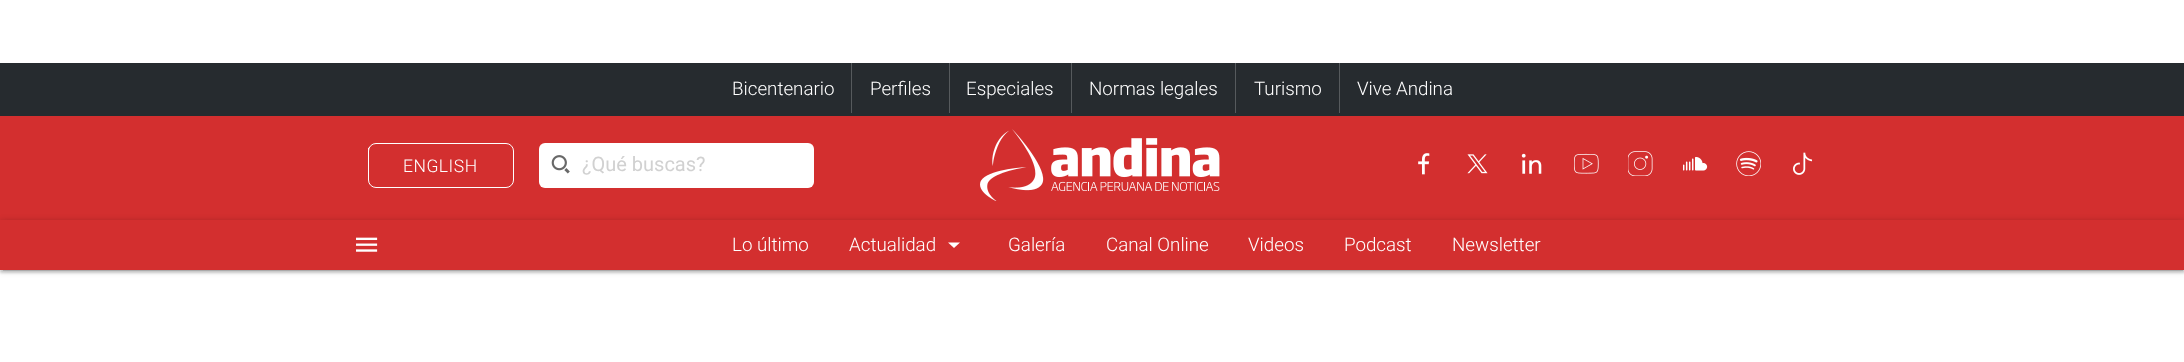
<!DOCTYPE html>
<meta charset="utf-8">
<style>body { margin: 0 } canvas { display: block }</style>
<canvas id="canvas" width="2184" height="362"></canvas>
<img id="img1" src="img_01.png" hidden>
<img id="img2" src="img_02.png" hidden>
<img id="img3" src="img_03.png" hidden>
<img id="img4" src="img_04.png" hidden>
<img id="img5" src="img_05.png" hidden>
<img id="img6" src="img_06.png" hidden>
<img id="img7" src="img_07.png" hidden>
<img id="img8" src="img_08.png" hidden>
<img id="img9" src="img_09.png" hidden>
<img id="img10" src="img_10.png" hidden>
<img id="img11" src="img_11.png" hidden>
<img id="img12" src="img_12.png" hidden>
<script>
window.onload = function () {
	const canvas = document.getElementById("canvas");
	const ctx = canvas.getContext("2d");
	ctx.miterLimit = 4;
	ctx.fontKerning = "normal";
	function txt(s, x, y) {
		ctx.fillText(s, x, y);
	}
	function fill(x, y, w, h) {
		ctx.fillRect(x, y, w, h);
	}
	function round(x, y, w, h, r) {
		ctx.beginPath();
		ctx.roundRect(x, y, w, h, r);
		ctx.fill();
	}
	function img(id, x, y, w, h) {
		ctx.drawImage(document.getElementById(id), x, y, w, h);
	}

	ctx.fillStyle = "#FFFFFF";
	fill(0, 0, 2184, 362);
	ctx.fillStyle = "#D32F2F";
	fill(0, 116, 2184, 104);
	ctx.fillStyle = "#262B2F";
	fill(0, 63, 2184, 53);
	ctx.fillStyle = "#565A5D";
	fill(851, 63, 1, 50);
	fill(949, 63, 1, 50);
	fill(1071, 63, 1, 50);
	fill(1235, 63, 1, 50);
	fill(1339, 63, 1, 50);
	img("img1", 368, 147, 2, 4);
	img("img2", 980, 129, 240, 72);
	ctx.fillStyle = "#D32F2F";
	ctx.beginPath();
	ctx.roundRect(368.5, 143.5, 145, 44, 7.5);
	ctx.fill();
	ctx.strokeStyle = "#FFFFFF";
	ctx.stroke();
	ctx.fillStyle = "#FFFFFF";
	round(539, 143, 275, 45, 6);
	img("img3", 551, 155, 19, 19);
	img("img4", 1418, 153, 12, 22);
	img("img5", 1467, 154, 21, 20);
	img("img6", 1521, 153, 21, 21);
	img("img7", 1574, 153, 25, 21);
	img("img8", 1628, 151, 25, 25);
	img("img9", 1683, 156, 25, 15);
	img("img10", 1736, 151, 25, 25);
	img("img11", 1793, 152, 20, 23);
	ctx.fillStyle = "rgba(0, 0, 0, 0.2)";
	ctx.filter = "blur(3px)";
	ctx.beginPath();
	ctx.rect(0, 221, 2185, 50);
	ctx.fill();
	ctx.filter = "none";
	ctx.fillStyle = "rgba(0, 0, 0, 0.12)";
	ctx.filter = "blur(0.5px)";
	ctx.beginPath();
	ctx.rect(3, 226, 2180, 45);
	ctx.fill();
	ctx.filter = "none";
	ctx.fillStyle = "rgba(0, 0, 0, 0.14)";
	ctx.filter = "blur(1px)";
	ctx.beginPath();
	ctx.rect(0, 223, 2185, 50);
	ctx.fill();
	ctx.filter = "none";
	ctx.fillStyle = "#D32F2F";
	fill(0, 220, 2184, 50);
	img("img12", 356, 237, 22, 15);
	ctx.fillStyle = "#FFFFFF";
	ctx.beginPath();
	ctx.moveTo(948, 242.5);
	ctx.lineTo(960, 242.5);
	ctx.lineTo(954, 248);
	ctx.closePath();
	ctx.fill();
	ctx.font = "300 18.75px Roboto";
	txt("Bicentenario", 732, 95);
	txt("Perfiles", 870, 95);
	txt("Especiales", 966, 95);
	txt("Normas legales", 1089, 95);
	txt("Turismo", 1254, 95);
	txt("Vive Andina", 1357, 95);
	ctx.letterSpacing = "0.5px";
	ctx.font = "300 17.5px Roboto";
	txt("ENGLISH", 403, 172);
	ctx.letterSpacing = "0px";
	ctx.font = "20px Roboto";
	ctx.fillStyle = "#D1D1D1";
	txt("¿Qué buscas?", 582, 171);
	ctx.font = "300 18.75px Roboto";
	ctx.fillStyle = "#FFFFFF";
	txt("Lo último", 732, 251);
	txt("Actualidad", 849, 251);
	txt("Galería", 1008, 251);
	txt("Canal Online", 1106, 251);
	txt("Videos", 1248, 251);
	txt("Podcast", 1344, 251);
	txt("Newsletter", 1452, 251);
};
</script>
